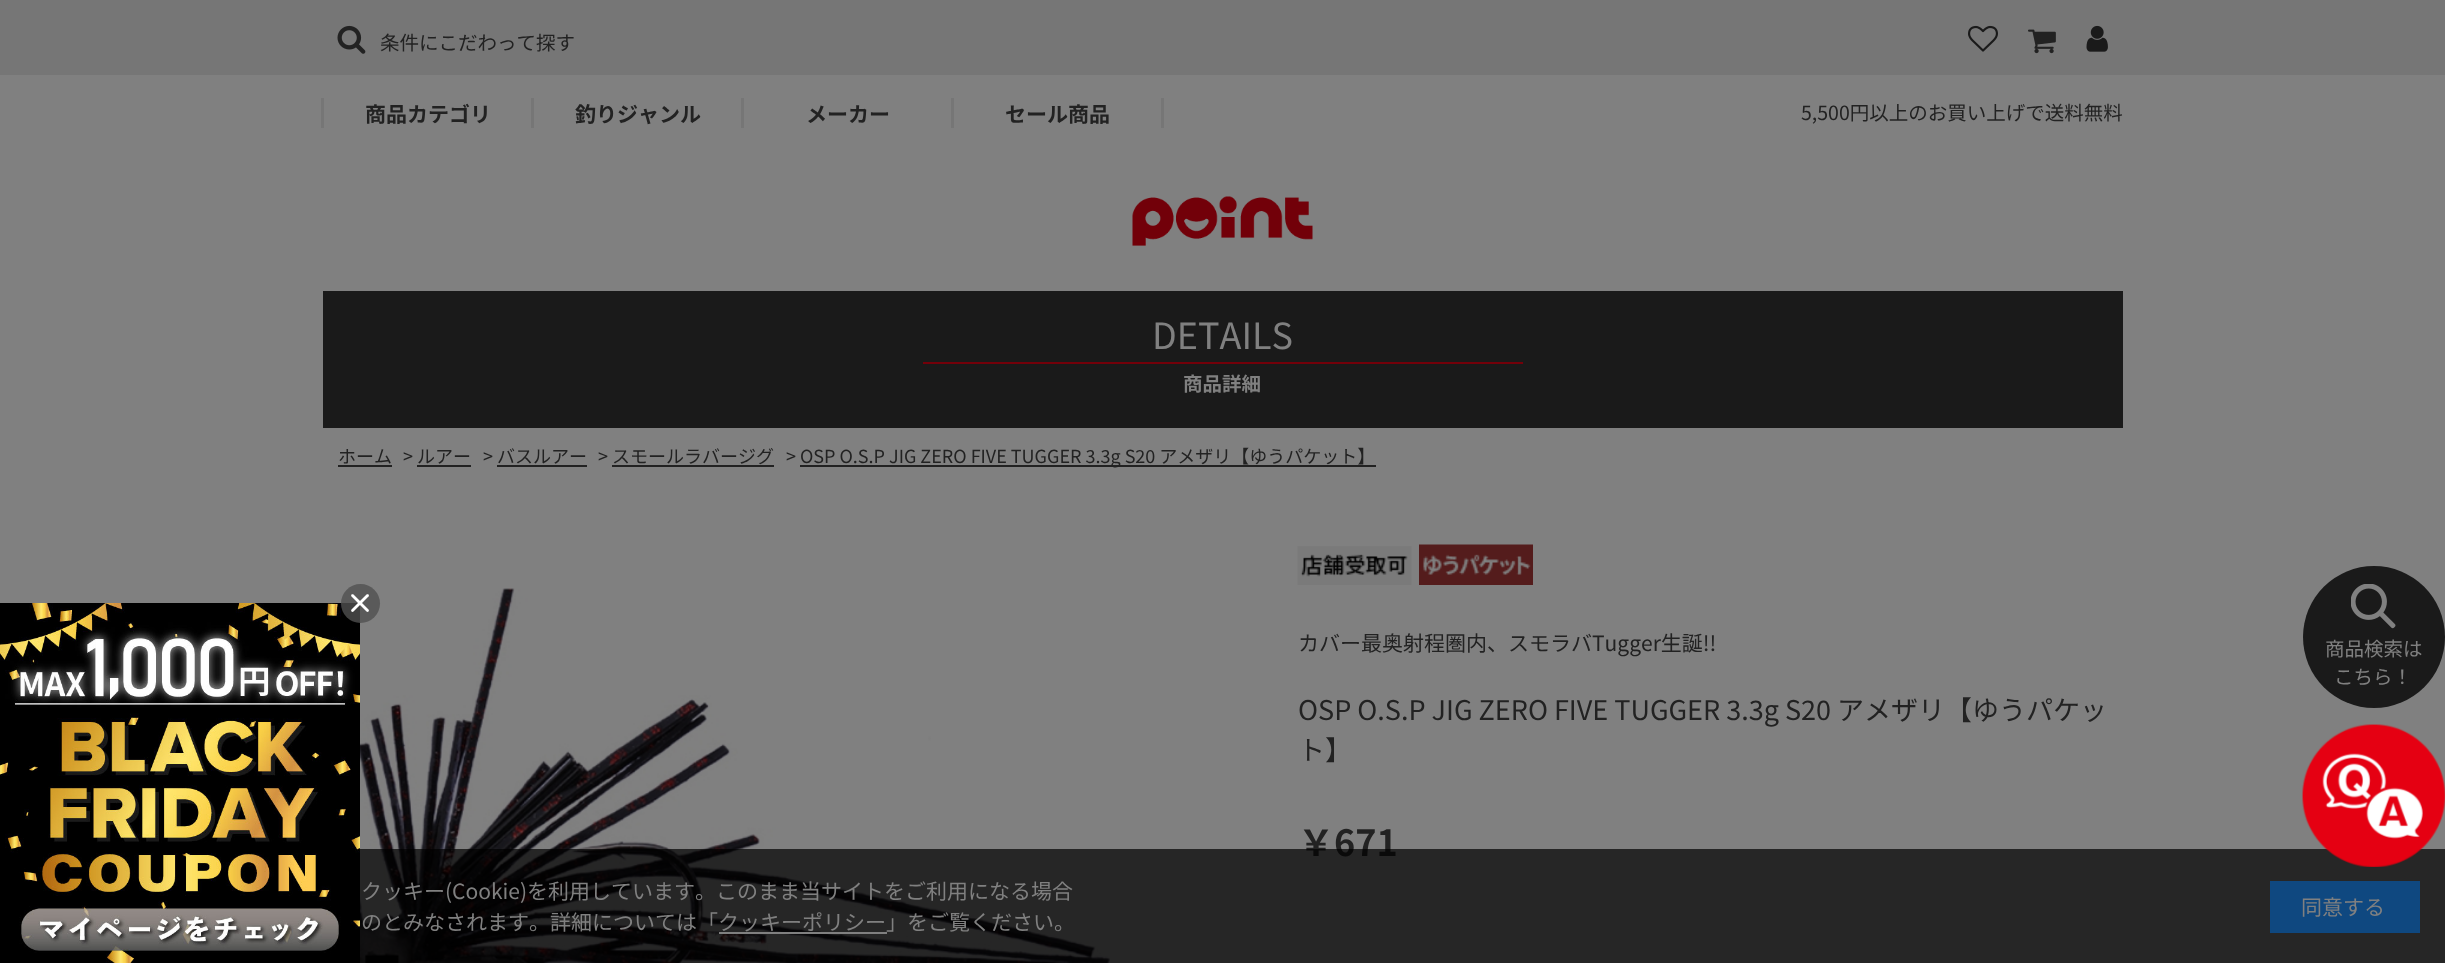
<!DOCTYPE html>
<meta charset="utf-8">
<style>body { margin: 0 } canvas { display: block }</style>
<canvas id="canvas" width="2445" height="963"></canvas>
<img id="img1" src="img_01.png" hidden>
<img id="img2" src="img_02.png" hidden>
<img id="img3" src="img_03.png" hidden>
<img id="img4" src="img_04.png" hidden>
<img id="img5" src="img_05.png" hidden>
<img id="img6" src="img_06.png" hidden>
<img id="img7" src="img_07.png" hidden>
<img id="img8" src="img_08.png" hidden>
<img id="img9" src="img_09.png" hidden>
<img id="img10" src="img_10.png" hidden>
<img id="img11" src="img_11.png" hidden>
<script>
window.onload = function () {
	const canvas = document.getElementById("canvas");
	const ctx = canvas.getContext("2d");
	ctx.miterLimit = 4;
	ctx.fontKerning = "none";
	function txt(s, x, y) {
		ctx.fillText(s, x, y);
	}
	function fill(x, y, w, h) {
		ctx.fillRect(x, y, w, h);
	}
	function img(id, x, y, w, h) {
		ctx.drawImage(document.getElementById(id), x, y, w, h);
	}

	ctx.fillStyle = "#808080";
	fill(0, 0, 2445, 963);
	ctx.fillStyle = "#767676";
	fill(0, 0, 2445, 75);
	img("img1", 337, 25, 29, 29);
	img("img2", 1968, 25, 30, 27);
	img("img3", 2028, 29, 28, 25);
	img("img4", 2086, 25, 22, 27);
	fill(321, 98, 3, 30);
	fill(531, 98, 3, 30);
	fill(741, 98, 3, 30);
	fill(951, 98, 3, 30);
	fill(1161, 98, 3, 30);
	img("img5", 1132, 196, 181, 50);
	ctx.fillStyle = "#1A1A1A";
	fill(323, 291, 1800, 137);
	ctx.fillStyle = "#730009";
	fill(923, 362, 600, 2);
	ctx.fillStyle = "#222222";
	fill(338, 465, 54, 2);
	fill(417, 465, 54, 2);
	fill(497, 465, 90, 2);
	fill(612, 465, 162, 2);
	fill(800, 465, 576, 2);
	img("img6", 343, 588, 767, 375);
	img("img7", 1297, 546, 115, 39);
	img("img8", 1419, 544, 114, 41);
	ctx.fillStyle = "#1A1A1A";
	ctx.beginPath();
	ctx.arc(2374, 637, 71, 0, Math.PI * 2);
	ctx.fill();
	img("img9", 2351, 584, 45, 45);
	img("img10", 0, 603, 360, 360);
	ctx.fillStyle = "rgba(80, 80, 80, 0.8)";
	ctx.beginPath();
	ctx.arc(360.5, 603.5, 19.5, 0, Math.PI * 2);
	ctx.fill();
	ctx.fillStyle = "#FFFFFF";
	ctx.beginPath();
	ctx.moveTo(368.5, 594.5);
	ctx.bezierCurveTo(369, 595, 369, 596, 368.5, 596.5);
	ctx.lineTo(353.5, 611.5);
	ctx.bezierCurveTo(353, 612, 352, 612, 351.5, 611.5);
	ctx.bezierCurveTo(351, 611, 351, 610, 351.5, 609.5);
	ctx.lineTo(366.5, 594.5);
	ctx.bezierCurveTo(367, 594, 368, 594, 368.5, 594.5);
	ctx.closePath();
	ctx.fill();
	ctx.beginPath();
	ctx.moveTo(351.5, 594.5);
	ctx.bezierCurveTo(352, 594, 353, 594, 353.5, 594.5);
	ctx.lineTo(368.5, 609.5);
	ctx.bezierCurveTo(369, 610, 369, 611, 368.5, 611.5);
	ctx.bezierCurveTo(368, 612, 367, 612, 366.5, 611.5);
	ctx.lineTo(351.5, 596.5);
	ctx.bezierCurveTo(351, 596, 351, 595, 351.5, 594.5);
	ctx.closePath();
	ctx.fill();
	ctx.font = "19.5px Noto Sans JP";
	ctx.fillStyle = "#222222";
	txt("条件にこだわって探す", 380, 50);
	ctx.font = "bold 21px Noto Sans JP";
	txt("商品カテゴリ", 365, 122);
	txt("釣りジャンル", 575, 122);
	txt("メーカー", 806, 122);
	txt("セール商品", 1005, 122);
	ctx.font = "19.5px Noto Sans JP";
	txt("5,500円以上のお買い上げで送料無料", 1801, 120);
	ctx.font = "36px Noto Sans JP";
	ctx.fillStyle = "#808080";
	txt("DETAILS", 1152, 349);
	ctx.font = "bold 19.5px Noto Sans JP";
	txt("商品詳細", 1183, 391);
	ctx.font = "18px Noto Sans JP";
	ctx.fillStyle = "#222222";
	txt("ホーム", 338, 463);
	txt("> ルアー", 403, 463);
	txt("> バスルアー", 483, 463);
	txt("> スモールラバージグ", 598, 463);
	txt(">", 786, 463);
	txt("OSP O.S.P JIG ZERO FIVE TUGGER 3.3g S20 アメザリ【ゆうパケット】", 800, 463);
	ctx.font = "21px Noto Sans JP";
	txt("カバー最奥射程圏内、スモラバTugger生誕!!", 1298, 651);
	ctx.font = "27px Noto Sans JP";
	txt("OSP O.S.P JIG ZERO FIVE TUGGER 3.3g S20 アメザリ【ゆうパケッ", 1298, 720);
	txt("ト】", 1298, 760);
	ctx.font = "bold 36px Noto Sans JP";
	txt("￥671", 1298, 856);
	ctx.font = "19.5px Noto Sans JP";
	ctx.fillStyle = "#808080";
	txt("商品検索は", 2325, 656);
	txt("こちら！", 2334, 684);
	ctx.fillStyle = "rgba(0, 0, 0, 0.7)";
	fill(360, 849, 2085, 114);
	img("img11", 2302, 724, 143, 143);
	ctx.font = "21px Noto Sans JP";
	ctx.fillStyle = "#808080";
	txt("クッキー(Cookie)を利用しています。このまま当サイトをご利用になる場合", 361, 899);
	txt("のとみなされます。詳細については「クッキーポリシー」をご覧ください。", 361, 930);
	fill(719, 932, 168, 2);
	ctx.fillStyle = "#0F4880";
	fill(2270, 881, 150, 52);
	ctx.fillStyle = "#808080";
	txt("同意する", 2301, 915);
};
</script>
